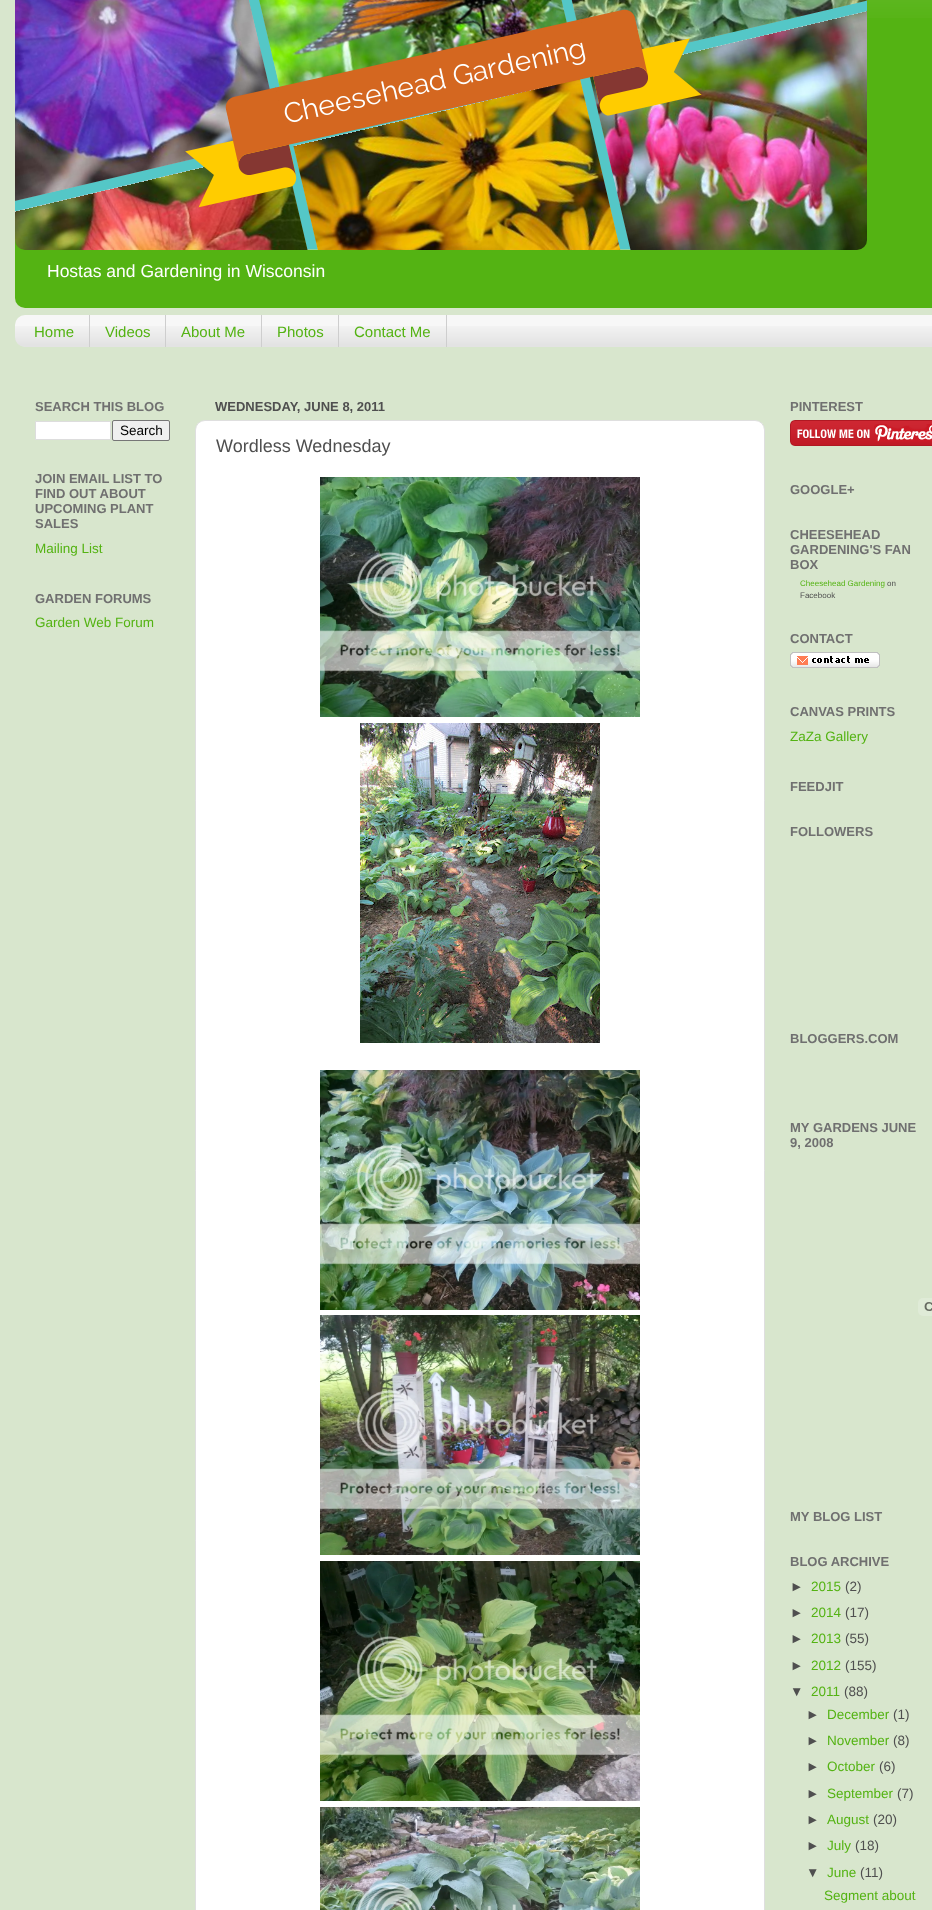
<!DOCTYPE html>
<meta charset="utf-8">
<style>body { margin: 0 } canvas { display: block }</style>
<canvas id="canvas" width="932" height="1910"></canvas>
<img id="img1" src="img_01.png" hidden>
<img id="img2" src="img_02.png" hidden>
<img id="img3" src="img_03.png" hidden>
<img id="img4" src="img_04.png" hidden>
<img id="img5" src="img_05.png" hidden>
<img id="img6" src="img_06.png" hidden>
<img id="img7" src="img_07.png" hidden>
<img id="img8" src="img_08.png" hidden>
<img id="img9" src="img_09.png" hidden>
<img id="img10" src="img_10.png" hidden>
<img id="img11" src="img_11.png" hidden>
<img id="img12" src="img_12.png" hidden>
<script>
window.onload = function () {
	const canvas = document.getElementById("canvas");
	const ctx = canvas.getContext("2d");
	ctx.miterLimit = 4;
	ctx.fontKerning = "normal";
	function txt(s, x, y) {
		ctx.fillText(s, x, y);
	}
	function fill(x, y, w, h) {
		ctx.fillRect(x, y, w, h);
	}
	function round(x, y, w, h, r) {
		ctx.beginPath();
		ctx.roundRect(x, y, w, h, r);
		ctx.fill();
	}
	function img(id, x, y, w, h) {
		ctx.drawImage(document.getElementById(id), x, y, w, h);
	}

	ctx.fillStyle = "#D8E6CD";
	fill(0, 0, 932, 1910);
	ctx.fillStyle = "#54B313";
	round(15, -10, 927, 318, 10);
	img("img1", 867, 0, 65, 18);
	img("img2", 15, 0, 852, 250);
	ctx.fillStyle = "#F7F7F7";
	round(15, 315, 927, 32, 10);
	img("img3", 15, 326, 917, 21);
	ctx.fillStyle = "#CECECE";
	fill(89, 315, 1, 32);
	fill(165, 315, 1, 32);
	fill(261, 315, 1, 32);
	fill(338, 315, 1, 32);
	fill(446, 315, 1, 32);
	ctx.fillStyle = "#FFFFFF";
	ctx.beginPath();
	ctx.rect(35.5, 421.5, 75, 18);
	ctx.fill();
	ctx.strokeStyle = "#DDDDDD";
	ctx.stroke();
	ctx.fillStyle = "#EFEFEF";
	ctx.beginPath();
	ctx.roundRect(112.5, 420.5, 57, 20, 1.5);
	ctx.fill();
	ctx.strokeStyle = "#767676";
	ctx.stroke();
	ctx.fillStyle = "#FFFFFF";
	ctx.beginPath();
	ctx.roundRect(195.5, 420.5, 569, 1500, 9.5);
	ctx.fill();
	ctx.strokeStyle = "#DFDFDF";
	ctx.stroke();
	img("img4", 320, 477, 320, 240);
	img("img5", 360, 723, 240, 320);
	img("img6", 320, 1070, 320, 240);
	img("img7", 320, 1315, 320, 240);
	img("img8", 320, 1561, 320, 240);
	img("img9", 320, 1807, 320, 103);
	img("img10", 790, 420, 142, 26);
	img("img11", 790, 652, 90, 16);
	img("img12", 918, 1298, 14, 18);
	ctx.font = "17.5px Liberation Sans";
	txt("Hostas and Gardening in Wisconsin", 47, 277);
	ctx.font = "15px Liberation Sans";
	ctx.fillStyle = "#54B313";
	txt("Home", 34, 337);
	txt("Videos", 105, 337);
	txt("About Me", 181, 337);
	txt("Photos", 277, 337);
	txt("Contact Me", 354, 337);
	ctx.font = "bold 13px Liberation Sans";
	ctx.fillStyle = "#707070";
	txt("SEARCH THIS BLOG", 35, 411);
	ctx.font = "13.5px Liberation Sans";
	ctx.fillStyle = "#000000";
	txt("Search", 120, 435);
	ctx.font = "bold 13px Liberation Sans";
	ctx.fillStyle = "#707070";
	txt("JOIN EMAIL LIST TO", 35, 483);
	txt("FIND OUT ABOUT", 35, 498);
	txt("UPCOMING PLANT", 35, 513);
	txt("SALES", 35, 528);
	ctx.font = "13.5px Liberation Sans";
	ctx.fillStyle = "#54B313";
	txt("Mailing List", 35, 553);
	ctx.font = "bold 13px Liberation Sans";
	ctx.fillStyle = "#707070";
	txt("GARDEN FORUMS", 35, 603);
	ctx.font = "13.5px Liberation Sans";
	ctx.fillStyle = "#54B313";
	txt("Garden Web Forum", 35, 627);
	ctx.font = "bold 13px Liberation Sans";
	ctx.fillStyle = "#4F4F4F";
	txt("WEDNESDAY, JUNE 8, 2011", 215, 411);
	ctx.font = "18px Liberation Sans";
	txt("Wordless Wednesday", 216, 452);
	ctx.font = "bold 13px Liberation Sans";
	ctx.fillStyle = "#707070";
	txt("PINTEREST", 790, 411);
	txt("GOOGLE+", 790, 494);
	txt("CHEESEHEAD", 790, 539);
	txt("GARDENING'S FAN", 790, 554);
	txt("BOX", 790, 569);
	ctx.font = "8px Liberation Sans";
	ctx.fillStyle = "#54B313";
	txt("Cheesehead Gardening", 800, 586);
	ctx.fillStyle = "#4F4F4F";
	txt("on", 887, 586);
	txt("Facebook", 800, 598);
	ctx.font = "bold 13px Liberation Sans";
	ctx.fillStyle = "#707070";
	txt("CONTACT", 790, 643);
	txt("CANVAS PRINTS", 790, 716);
	ctx.font = "13.5px Liberation Sans";
	ctx.fillStyle = "#54B313";
	txt("ZaZa Gallery", 790, 741);
	ctx.font = "bold 13px Liberation Sans";
	ctx.fillStyle = "#707070";
	txt("FEEDJIT", 790, 791);
	txt("FOLLOWERS", 790, 836);
	txt("BLOGGERS.COM", 790, 1043);
	txt("MY GARDENS JUNE", 790, 1132);
	txt("9, 2008", 790, 1147);
	txt("MY BLOG LIST", 790, 1521);
	txt("BLOG ARCHIVE", 790, 1566);
	ctx.font = "13.5px Liberation Sans";
	ctx.fillStyle = "#4F4F4F";
	txt("►", 790, 1591);
	ctx.fillStyle = "#54B313";
	txt("2015", 811, 1591);
	ctx.fillStyle = "#4F4F4F";
	txt("(2)", 845, 1591);
	txt("►", 790, 1617);
	ctx.fillStyle = "#54B313";
	txt("2014", 811, 1617);
	ctx.fillStyle = "#4F4F4F";
	txt("(17)", 845, 1617);
	txt("►", 790, 1643);
	ctx.fillStyle = "#54B313";
	txt("2013", 811, 1643);
	ctx.fillStyle = "#4F4F4F";
	txt("(55)", 845, 1643);
	txt("►", 790, 1670);
	ctx.fillStyle = "#54B313";
	txt("2012", 811, 1670);
	ctx.fillStyle = "#4F4F4F";
	txt("(155)", 845, 1670);
	txt("▼", 790, 1696);
	ctx.fillStyle = "#54B313";
	txt("2011", 811, 1696);
	ctx.fillStyle = "#4F4F4F";
	txt("(88)", 844, 1696);
	txt("►", 806, 1719);
	ctx.fillStyle = "#54B313";
	txt("December", 827, 1719);
	ctx.fillStyle = "#4F4F4F";
	txt("(1)", 893, 1719);
	txt("►", 806, 1745);
	ctx.fillStyle = "#54B313";
	txt("November", 827, 1745);
	ctx.fillStyle = "#4F4F4F";
	txt("(8)", 893, 1745);
	txt("►", 806, 1771);
	ctx.fillStyle = "#54B313";
	txt("October", 827, 1771);
	ctx.fillStyle = "#4F4F4F";
	txt("(6)", 879, 1771);
	txt("►", 806, 1798);
	ctx.fillStyle = "#54B313";
	txt("September", 827, 1798);
	ctx.fillStyle = "#4F4F4F";
	txt("(7)", 897, 1798);
	txt("►", 806, 1824);
	ctx.fillStyle = "#54B313";
	txt("August", 827, 1824);
	ctx.fillStyle = "#4F4F4F";
	txt("(20)", 873, 1824);
	txt("►", 806, 1850);
	ctx.fillStyle = "#54B313";
	txt("July", 827, 1850);
	ctx.fillStyle = "#4F4F4F";
	txt("(18)", 855, 1850);
	txt("▼", 806, 1877);
	ctx.fillStyle = "#54B313";
	txt("June", 827, 1877);
	ctx.fillStyle = "#4F4F4F";
	txt("(11)", 860, 1877);
	ctx.fillStyle = "#54B313";
	txt("Segment about", 824, 1900);
};
</script>
